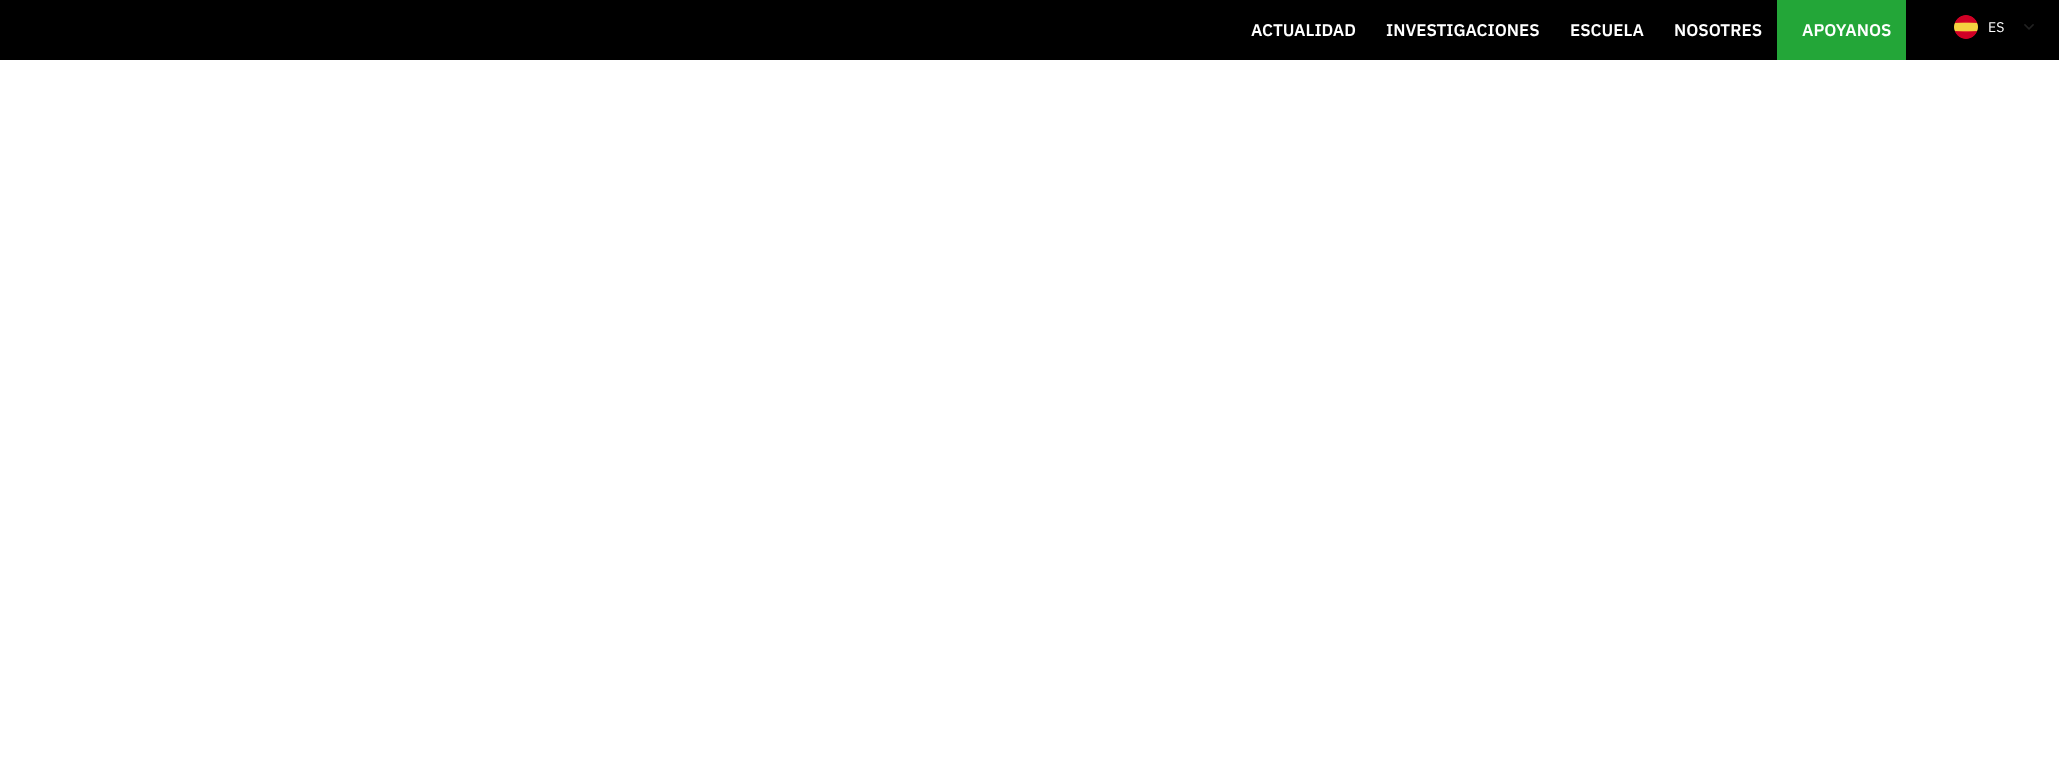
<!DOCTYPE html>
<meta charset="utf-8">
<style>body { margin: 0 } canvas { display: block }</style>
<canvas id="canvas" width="2059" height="774"></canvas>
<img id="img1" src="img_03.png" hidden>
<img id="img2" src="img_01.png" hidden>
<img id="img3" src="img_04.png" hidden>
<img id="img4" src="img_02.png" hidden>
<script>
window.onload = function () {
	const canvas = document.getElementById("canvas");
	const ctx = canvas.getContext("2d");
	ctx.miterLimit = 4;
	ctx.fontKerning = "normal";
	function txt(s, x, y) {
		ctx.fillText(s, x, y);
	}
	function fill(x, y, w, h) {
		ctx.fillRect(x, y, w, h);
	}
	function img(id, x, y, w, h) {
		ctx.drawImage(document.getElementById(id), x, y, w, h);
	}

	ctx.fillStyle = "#FFFFFF";
	fill(0, 0, 2059, 774);
	ctx.fillStyle = "#000000";
	fill(0, 0, 2059, 60);
	img("img1", 1954, 15, 24, 24);
	img("img2", 1954, 15, 24, 24);
	img("img3", 2024, 24, 10, 6);
	img("img4", 2024, 24, 10, 6);
	ctx.fillStyle = "#23A638";
	fill(1777, 0, 129, 60);
	ctx.font = "600 17px IBM Plex Sans";
	ctx.fillStyle = "#FFFFFF";
	txt("ACTUALIDAD", 1251, 36);
	txt("INVESTIGACIONES", 1386, 36);
	txt("ESCUELA", 1570, 36);
	txt("NOSOTRES", 1674, 36);
	txt("APOYANOS", 1802, 36);
	ctx.font = "14px IBM Plex Sans";
	txt("ES", 1988, 32);
};
</script>
